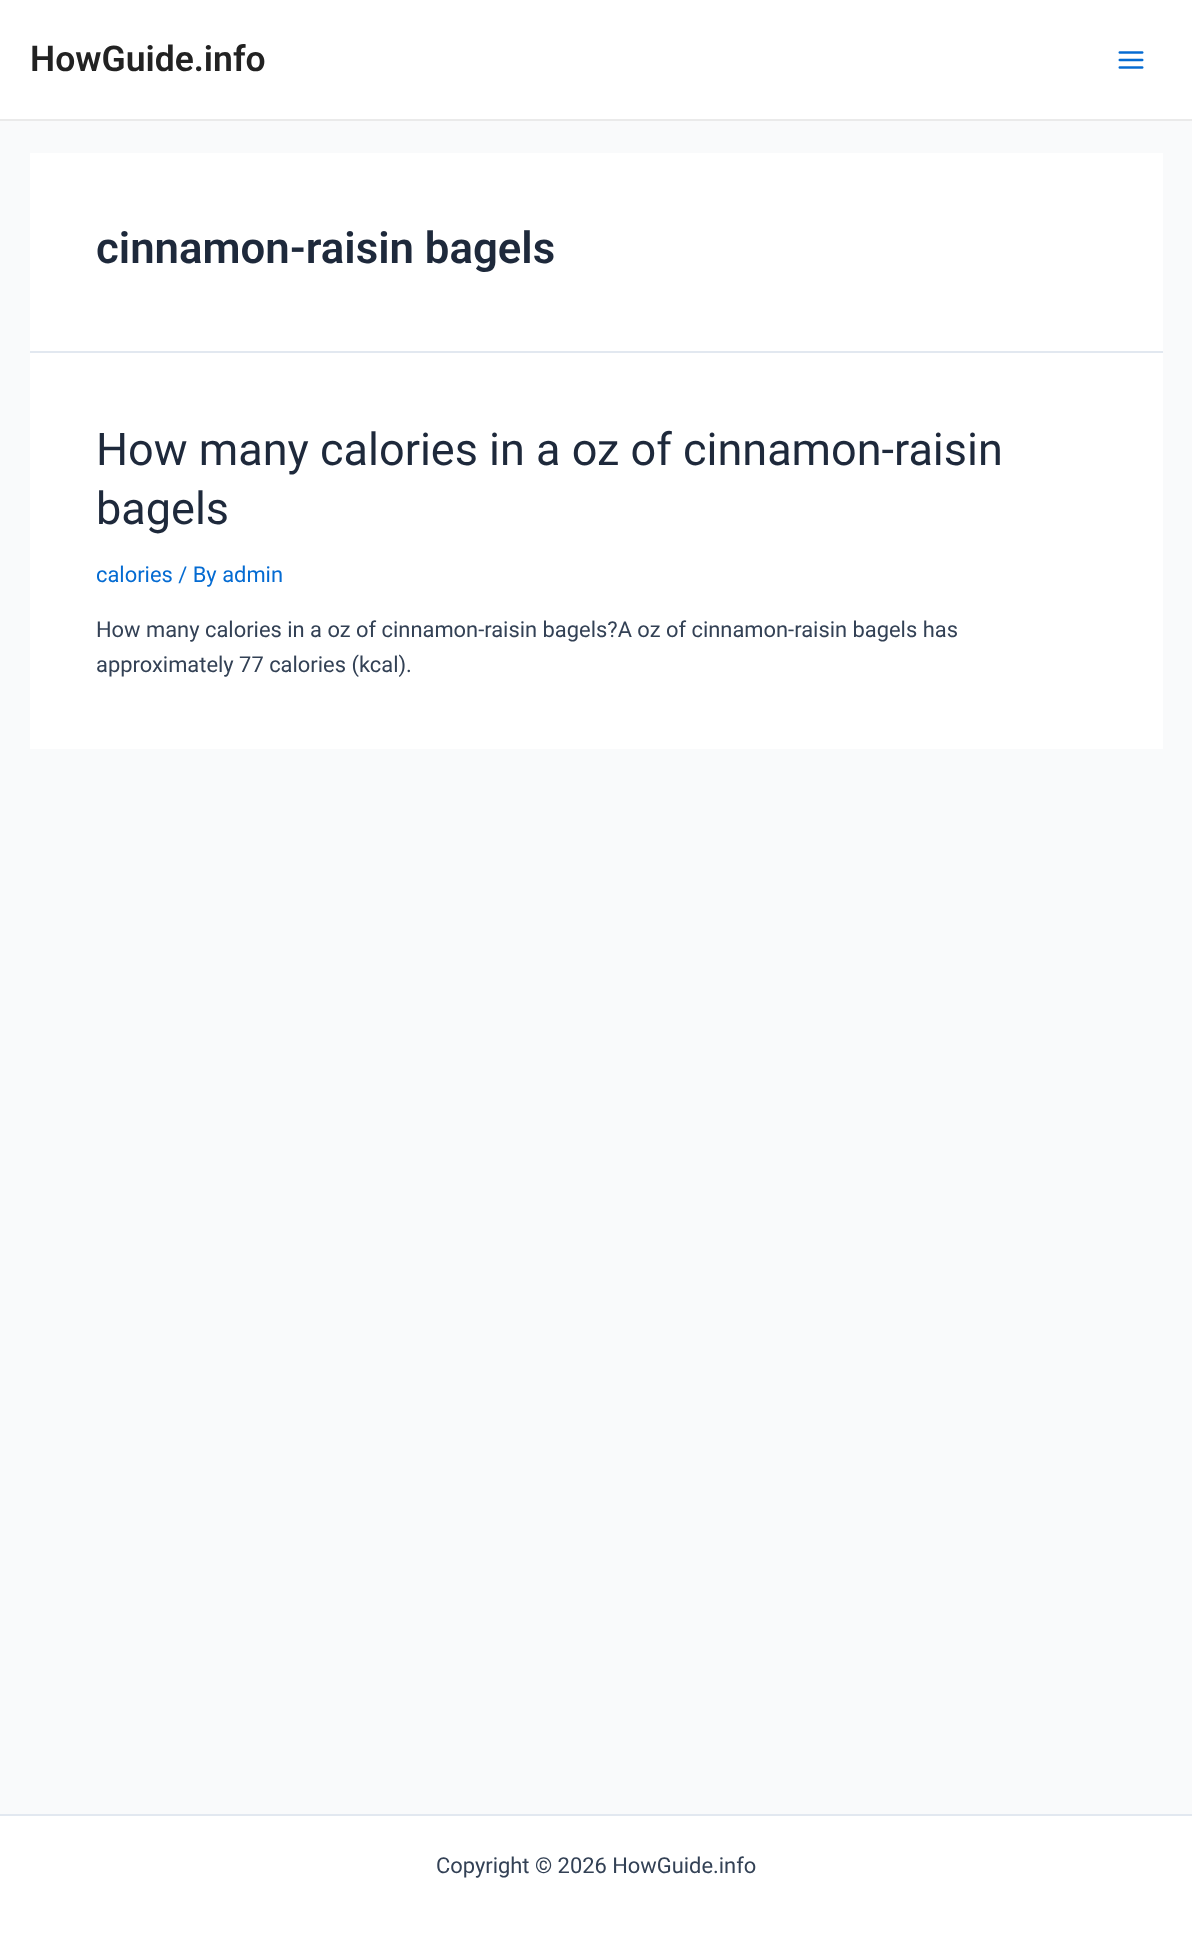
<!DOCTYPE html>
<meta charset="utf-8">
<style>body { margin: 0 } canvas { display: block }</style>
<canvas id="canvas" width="1192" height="1933"></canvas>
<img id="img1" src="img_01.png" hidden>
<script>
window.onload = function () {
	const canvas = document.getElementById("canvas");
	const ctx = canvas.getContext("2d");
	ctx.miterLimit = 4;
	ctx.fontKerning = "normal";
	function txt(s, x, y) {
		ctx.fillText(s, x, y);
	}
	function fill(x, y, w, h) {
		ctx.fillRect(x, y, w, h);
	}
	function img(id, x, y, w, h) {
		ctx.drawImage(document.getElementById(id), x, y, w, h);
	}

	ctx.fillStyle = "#F9FAFB";
	fill(0, 0, 1192, 1933);
	ctx.fillStyle = "#FFFFFF";
	fill(0, 0, 1192, 119);
	ctx.fillStyle = "#EAEAEA";
	fill(0, 119, 1192, 2);
	img("img1", 1118, 51, 26, 18);
	ctx.fillStyle = "#FFFFFF";
	fill(30, 153, 1133, 198);
	ctx.fillStyle = "#E2E8F0";
	fill(30, 351, 1133, 2);
	ctx.fillStyle = "#FFFFFF";
	fill(30, 353, 1133, 396);
	fill(0, 1816, 1192, 117);
	ctx.fillStyle = "#E2E8F0";
	fill(0, 1814, 1192, 2);
	ctx.font = "600 35.5px Roboto";
	ctx.fillStyle = "#222222";
	txt("HowGuide.info", 30, 71);
	ctx.font = "600 43.75px Roboto";
	ctx.fillStyle = "#1E293B";
	txt("cinnamon-raisin bagels", 96, 263);
	ctx.font = "45px Roboto";
	txt("How many calories in a oz of cinnamon-raisin", 96, 465);
	txt("bagels", 96, 524);
	ctx.font = "21.9px Roboto";
	ctx.fillStyle = "#046BD2";
	txt("calories / By admin", 96, 582);
	ctx.fillStyle = "#334155";
	txt("How many calories in a oz of cinnamon-raisin bagels?A oz of cinnamon-raisin bagels has", 96, 637);
	txt("approximately 77 calories (kcal).", 96, 672);
	txt("Copyright © 2026 HowGuide.info", 436, 1873);
};
</script>
